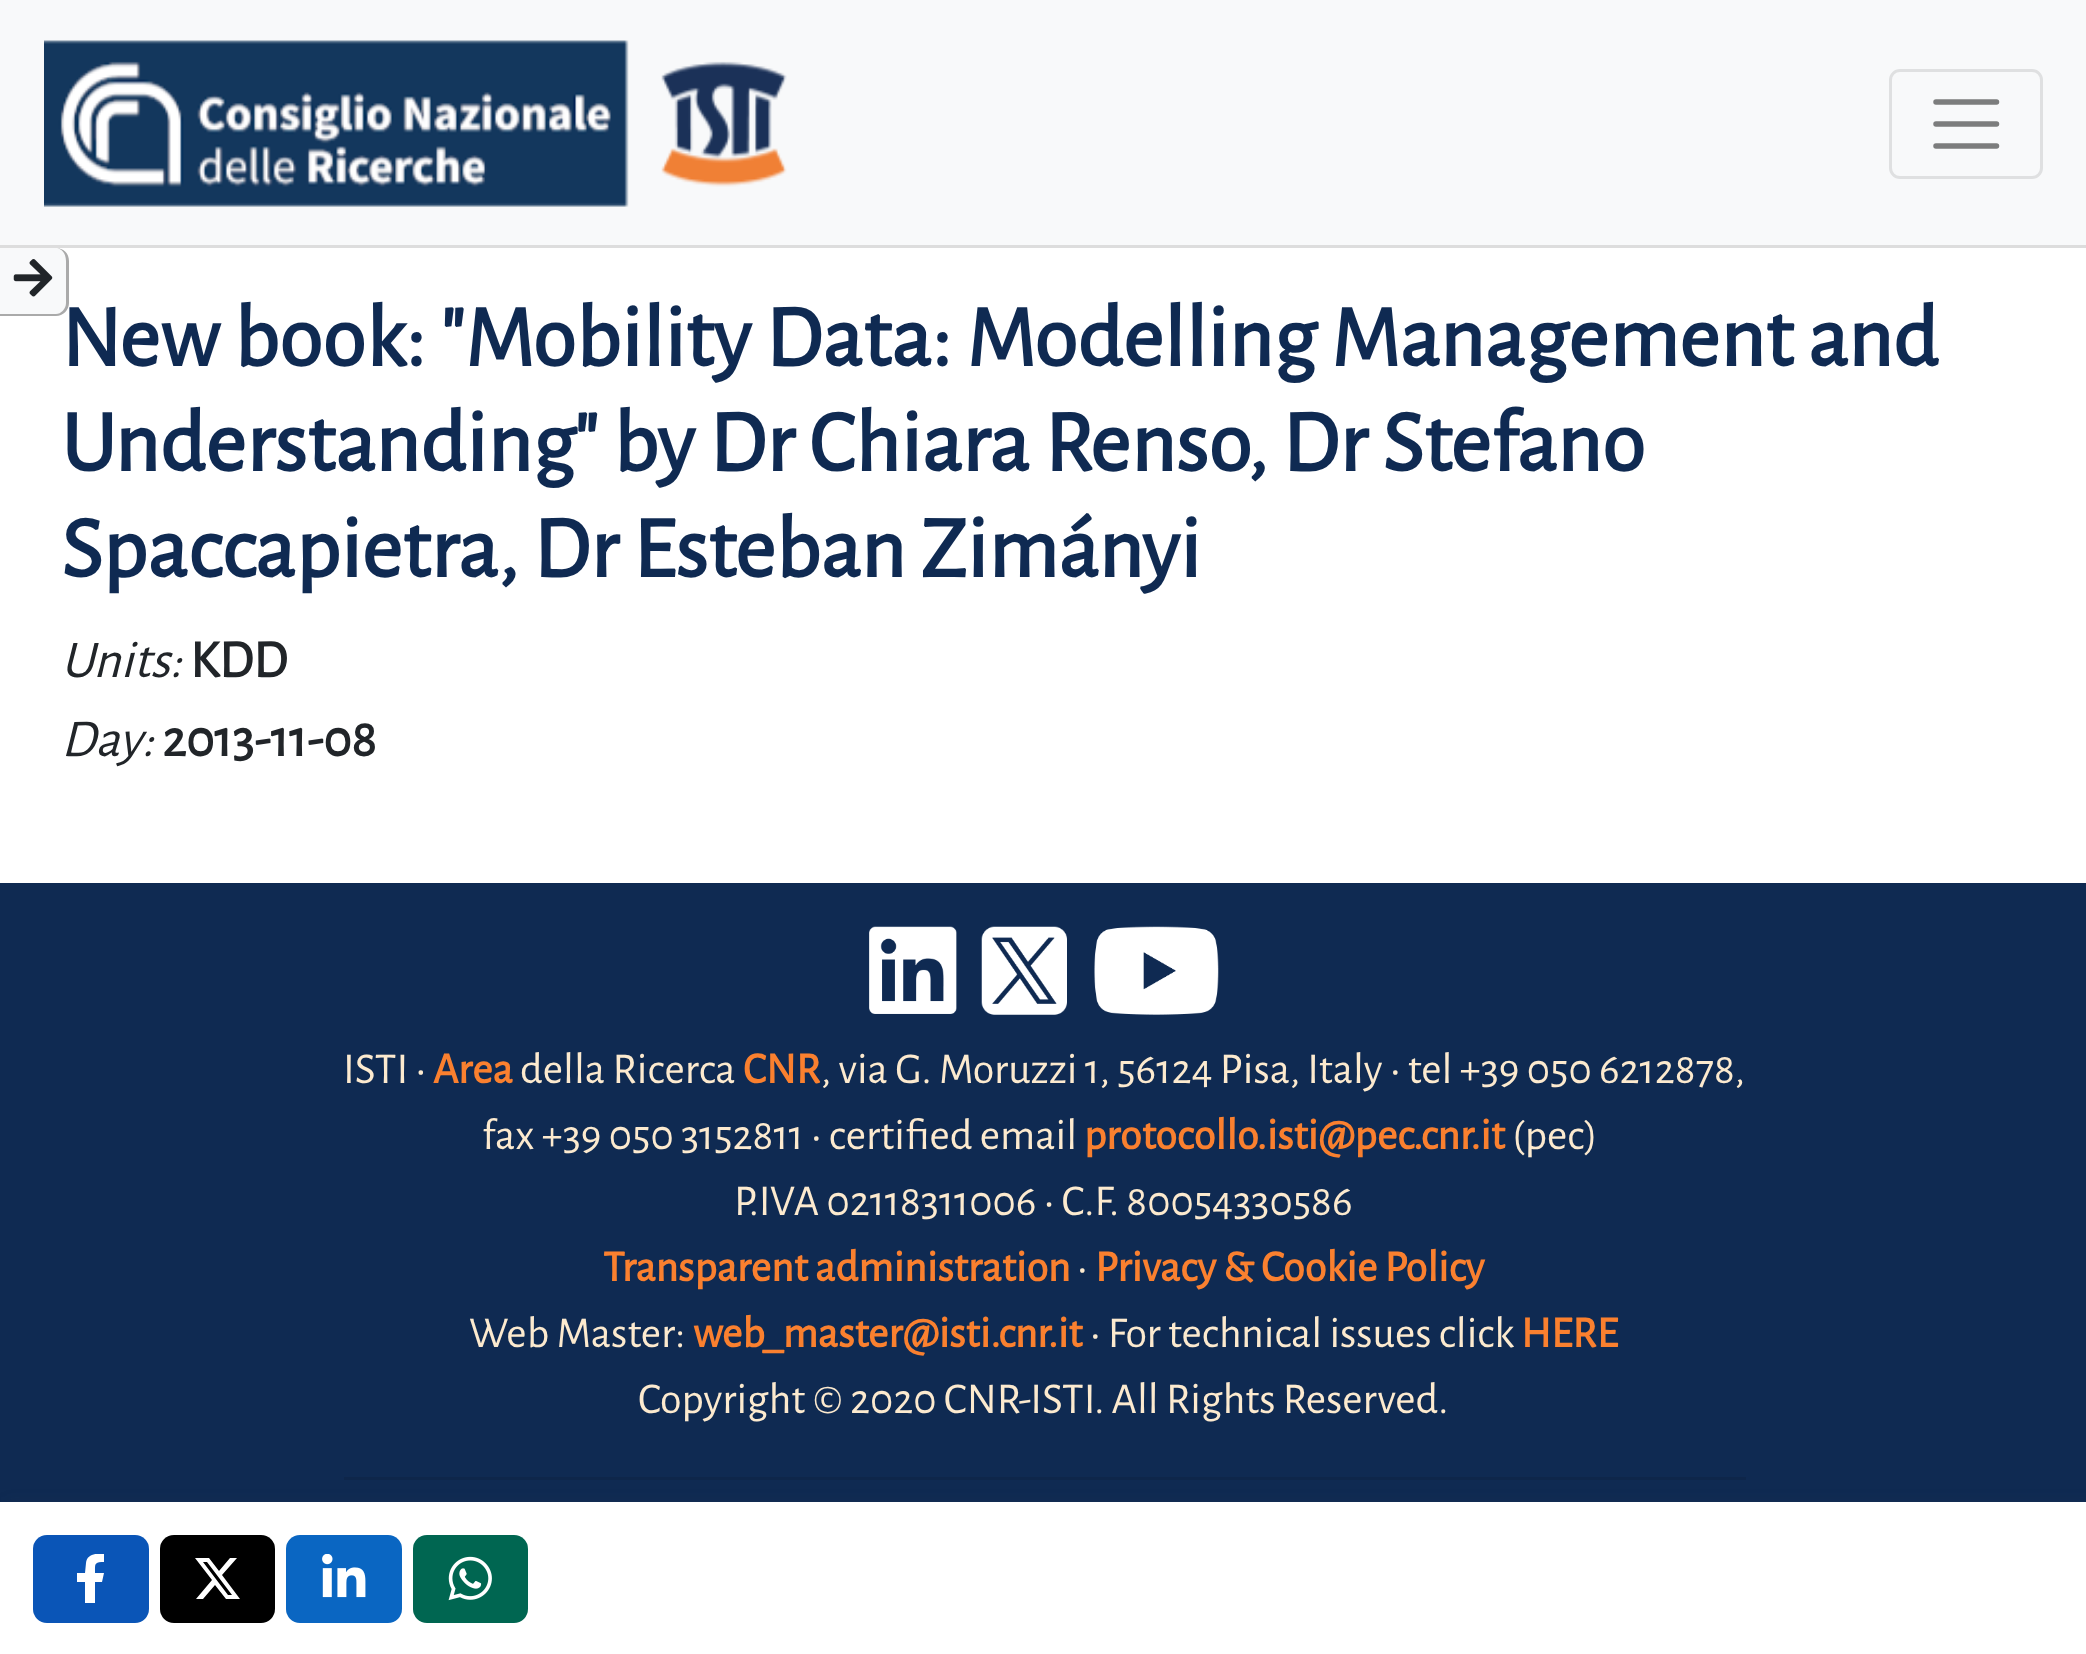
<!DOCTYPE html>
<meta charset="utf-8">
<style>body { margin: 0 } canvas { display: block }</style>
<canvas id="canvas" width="2086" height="1654"></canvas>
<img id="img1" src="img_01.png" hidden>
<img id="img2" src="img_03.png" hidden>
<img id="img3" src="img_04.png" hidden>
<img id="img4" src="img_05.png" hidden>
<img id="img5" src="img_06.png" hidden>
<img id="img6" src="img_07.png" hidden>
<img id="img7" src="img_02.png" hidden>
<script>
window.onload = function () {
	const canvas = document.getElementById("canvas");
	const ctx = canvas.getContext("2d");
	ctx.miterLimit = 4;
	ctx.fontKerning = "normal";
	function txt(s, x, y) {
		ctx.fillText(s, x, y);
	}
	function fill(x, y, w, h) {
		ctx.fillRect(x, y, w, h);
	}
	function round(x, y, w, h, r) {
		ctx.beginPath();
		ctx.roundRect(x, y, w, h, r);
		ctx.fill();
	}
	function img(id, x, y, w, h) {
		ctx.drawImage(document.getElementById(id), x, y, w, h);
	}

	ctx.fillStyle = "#FFFFFF";
	fill(0, 0, 2086, 1654);
	ctx.fillStyle = "#F8F9FA";
	fill(0, 0, 2086, 245);
	ctx.fillStyle = "#DDDDDD";
	fill(0, 245, 2086, 3);
	img("img1", 44, 40, 743, 167);
	ctx.beginPath();
	ctx.roundRect(1890.5, 70.5, 151, 107, 9.5);
	ctx.strokeStyle = "#DFE0E1";
	ctx.lineWidth = 3;
	ctx.stroke();
	ctx.beginPath();
	ctx.moveTo(1936, 102);
	ctx.lineTo(1996.5, 102);
	ctx.moveTo(1936, 124);
	ctx.lineTo(1996.5, 124);
	ctx.moveTo(1936, 146);
	ctx.lineTo(1996.5, 146);
	ctx.strokeStyle = "#7C7D7D";
	ctx.lineWidth = 5.5;
	ctx.lineCap = "round";
	ctx.stroke();
	ctx.fillStyle = "#0F2A52";
	fill(0, 883, 2086, 619);
	ctx.fillStyle = "rgba(57, 63, 72, 0.1)";
	ctx.filter = "blur(7px)";
	ctx.beginPath();
	ctx.rect(6, 1502, 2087, 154);
	ctx.fill();
	ctx.filter = "none";
	ctx.fillStyle = "#FFFFFF";
	fill(0, 1502, 2086, 152);
	ctx.fillStyle = "#0A55B7";
	round(33, 1535, 116, 88, 14);
	ctx.save();
	ctx.beginPath();
	ctx.rect(66, 1554, 50, 49);
	ctx.clip();
	ctx.fillStyle = "#FFFFFF";
	ctx.beginPath();
	ctx.moveTo(102, 1582);
	ctx.lineTo(104, 1573);
	ctx.lineTo(95, 1573);
	ctx.bezierCurveTo(95, 1564, 94, 1562, 104, 1562);
	ctx.lineTo(104, 1554);
	ctx.bezierCurveTo(96, 1553, 87, 1554, 86, 1563);
	ctx.lineTo(85, 1573);
	ctx.lineTo(77, 1573);
	ctx.lineTo(77, 1582);
	ctx.lineTo(85, 1582);
	ctx.lineTo(85, 1603);
	ctx.lineTo(95, 1603);
	ctx.lineTo(95, 1582);
	ctx.closePath();
	ctx.fill();
	ctx.restore();
	ctx.fillStyle = "#000000";
	round(160, 1535, 115, 88, 14);
	ctx.fillStyle = "#FFFFFF";
	ctx.beginPath();
	ctx.moveTo(230, 1558);
	ctx.lineTo(237, 1558);
	ctx.lineTo(222, 1575);
	ctx.lineTo(240, 1599);
	ctx.lineTo(226, 1599);
	ctx.lineTo(215, 1585);
	ctx.lineTo(203, 1599);
	ctx.lineTo(196, 1599);
	ctx.lineTo(212, 1580);
	ctx.lineTo(195, 1558);
	ctx.lineTo(209, 1558);
	ctx.lineTo(219, 1571);
	ctx.closePath();
	ctx.moveTo(228, 1595);
	ctx.lineTo(232, 1595);
	ctx.lineTo(207, 1562);
	ctx.lineTo(203, 1562);
	ctx.closePath();
	ctx.fill();
	ctx.fillStyle = "#0A66C2";
	round(286, 1535, 116, 88, 14);
	img("img2", 322, 1554, 44, 44);
	ctx.fillStyle = "#006651";
	round(413, 1535, 115, 88, 14);
	img("img3", 448, 1556, 44, 45);
	img("img4", 869, 926, 88, 88);
	img("img5", 981, 926, 86, 89);
	img("img6", 1094, 926, 125, 89);
	ctx.fillStyle = "#0E264A";
	fill(344, 1477, 1402, 3);
	ctx.font = "bold 88px Alegreya Sans";
	ctx.fillStyle = "#0F2A52";
	txt("New book: \"Mobility Data: Modelling Management and", 61, 366);
	ctx.fillStyle = "#F8F9FA";
	ctx.beginPath();
	ctx.roundRect(0, 248, 69, 68, [0, 14, 14, 0]);
	ctx.fill();
	ctx.fillStyle = "#AAAAAA";
	ctx.beginPath();
	ctx.moveTo(0, 248);
	ctx.lineTo(56, 248);
	ctx.bezierCurveTo(63, 248, 69, 253, 69, 261);
	ctx.lineTo(69, 303);
	ctx.bezierCurveTo(69, 310, 63, 316, 56, 316);
	ctx.lineTo(0, 316);
	ctx.closePath();
	ctx.moveTo(0, 248);
	ctx.lineTo(56, 248);
	ctx.bezierCurveTo(61, 248, 66, 253, 66, 261);
	ctx.lineTo(66, 303);
	ctx.bezierCurveTo(66, 309, 61, 314, 56, 314);
	ctx.lineTo(0, 314);
	ctx.closePath();
	ctx.fill("evenodd");
	img("img7", 13, 259, 40, 38);
	ctx.fillStyle = "#0F2A52";
	txt("Understanding\" by Dr Chiara Renso, Dr Stefano", 61, 471);
	txt("Spaccapietra, Dr Esteban Zimányi", 61, 577);
	ctx.font = "italic 53px Alegreya Sans";
	ctx.fillStyle = "#212529";
	txt("Units:", 61, 677);
	ctx.font = "bold 53px Alegreya Sans";
	txt("KDD", 190, 677);
	ctx.font = "italic 53px Alegreya Sans";
	txt("Day:", 61, 756);
	ctx.font = "bold 53px Alegreya Sans";
	txt("2013-11-08", 162, 756);
	ctx.font = "44px Alegreya Sans";
	ctx.fillStyle = "#FCEACF";
	txt("ISTI •", 343, 1083);
	ctx.font = "bold 44px Alegreya Sans";
	ctx.fillStyle = "#FA802F";
	txt("Area", 433, 1083);
	ctx.font = "44px Alegreya Sans";
	ctx.fillStyle = "#FCEACF";
	txt("della Ricerca", 520, 1083);
	ctx.font = "bold 44px Alegreya Sans";
	ctx.fillStyle = "#FA802F";
	txt("CNR", 743, 1083);
	ctx.font = "44px Alegreya Sans";
	ctx.fillStyle = "#FCEACF";
	txt(", via G. Moruzzi 1, 56124 Pisa, Italy • tel +39 050 6212878,", 821, 1083);
	txt("fax +39 050 3152811 • certified email", 482, 1149);
	ctx.font = "bold 44px Alegreya Sans";
	ctx.fillStyle = "#FA802F";
	txt("protocollo.isti@pec.cnr.it", 1084, 1149);
	ctx.font = "44px Alegreya Sans";
	ctx.fillStyle = "#FCEACF";
	txt("(pec)", 1512, 1149);
	txt("P.IVA 02118311006 • C.F. 80054330586", 734, 1215);
	ctx.font = "bold 44px Alegreya Sans";
	ctx.fillStyle = "#FA802F";
	txt("Transparent administration", 603, 1281);
	ctx.font = "44px Alegreya Sans";
	ctx.fillStyle = "#FCEACF";
	txt("•", 1077, 1281);
	ctx.font = "bold 44px Alegreya Sans";
	ctx.fillStyle = "#FA802F";
	txt("Privacy & Cookie Policy", 1095, 1281);
	ctx.font = "44px Alegreya Sans";
	ctx.fillStyle = "#FCEACF";
	txt("Web Master:", 469, 1347);
	ctx.font = "bold 44px Alegreya Sans";
	ctx.fillStyle = "#FA802F";
	txt("web_master@isti.cnr.it", 693, 1347);
	ctx.font = "44px Alegreya Sans";
	ctx.fillStyle = "#FCEACF";
	txt("• For technical issues click", 1090, 1347);
	ctx.font = "bold 44px Alegreya Sans";
	ctx.fillStyle = "#FA802F";
	txt("HERE", 1521, 1347);
	ctx.font = "44px Alegreya Sans";
	ctx.fillStyle = "#FCEACF";
	txt("Copyright © 2020 CNR-ISTI. All Rights Reserved.", 638, 1413);
};
</script>
